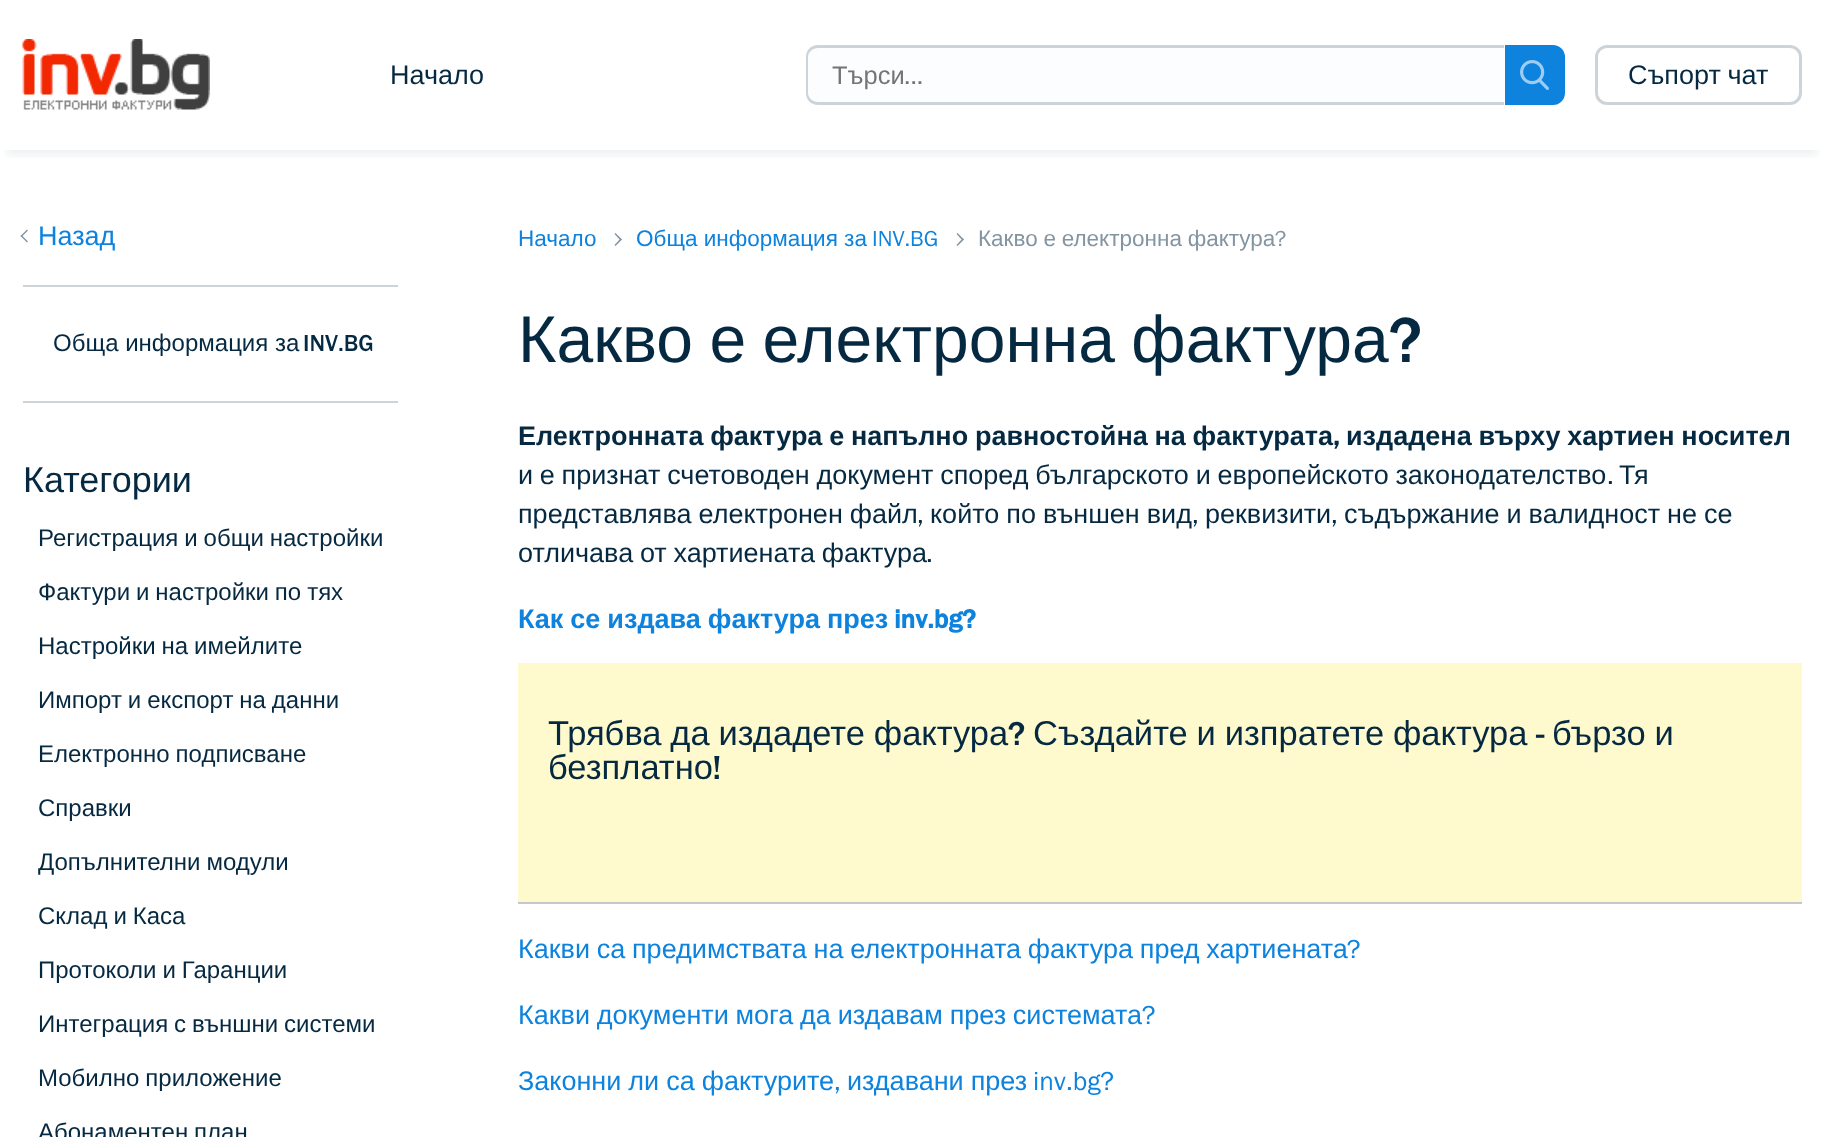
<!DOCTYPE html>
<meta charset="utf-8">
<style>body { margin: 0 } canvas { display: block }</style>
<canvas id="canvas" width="1823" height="1137"></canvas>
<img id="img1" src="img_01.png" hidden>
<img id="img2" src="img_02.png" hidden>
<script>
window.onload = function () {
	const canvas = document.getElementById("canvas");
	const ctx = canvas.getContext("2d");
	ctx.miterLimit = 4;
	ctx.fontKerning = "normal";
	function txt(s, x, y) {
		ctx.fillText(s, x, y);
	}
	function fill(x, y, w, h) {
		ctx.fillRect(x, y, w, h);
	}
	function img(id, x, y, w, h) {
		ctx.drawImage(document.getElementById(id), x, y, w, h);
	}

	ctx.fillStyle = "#FFFFFF";
	fill(0, 0, 1823, 1137);
	ctx.save();
	ctx.beginPath();
	ctx.rect(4, 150, 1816, 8);
	ctx.clip();
	ctx.fillStyle = "rgba(6, 41, 66, 0.07)";
	ctx.filter = "blur(4.5px)";
	ctx.beginPath();
	ctx.rect(6, 17, 1812, 138);
	ctx.fill();
	ctx.filter = "none";
	ctx.restore();
	img("img1", 22, 39, 188, 71);
	ctx.fillStyle = "#FBFDFE";
	ctx.beginPath();
	ctx.roundRect(806, 45, 699, 60, [12, 0, 0, 12]);
	ctx.fill();
	ctx.fillStyle = "#CDD4D9";
	ctx.beginPath();
	ctx.moveTo(818, 45);
	ctx.lineTo(1504, 45);
	ctx.lineTo(1504, 105);
	ctx.lineTo(818, 105);
	ctx.bezierCurveTo(811, 105, 806, 100, 806, 93);
	ctx.lineTo(806, 57);
	ctx.bezierCurveTo(806, 50, 811, 45, 818, 45);
	ctx.closePath();
	ctx.moveTo(818, 48);
	ctx.lineTo(1504, 48);
	ctx.lineTo(1504, 102);
	ctx.lineTo(818, 102);
	ctx.bezierCurveTo(813, 102, 808, 98, 808, 93);
	ctx.lineTo(808, 57);
	ctx.bezierCurveTo(808, 52, 813, 48, 818, 48);
	ctx.closePath();
	ctx.fill("evenodd");
	ctx.fillStyle = "#0D83DD";
	ctx.beginPath();
	ctx.roundRect(1506.5, 46.5, 57, 57, [0, 10.5, 10.5, 0]);
	ctx.fill();
	ctx.strokeStyle = "#0D83DD";
	ctx.lineWidth = 3;
	ctx.stroke();
	img("img2", 1520, 60, 29, 30);
	ctx.beginPath();
	ctx.roundRect(1596.5, 46.5, 204, 57, 10.5);
	ctx.strokeStyle = "#CDD4D9";
	ctx.stroke();
	ctx.fillStyle = "#8495A2";
	ctx.beginPath();
	ctx.moveTo(28, 241.5);
	ctx.lineTo(27, 242.5);
	ctx.lineTo(20.5, 236);
	ctx.lineTo(21.5, 235);
	ctx.closePath();
	ctx.fill();
	ctx.beginPath();
	ctx.moveTo(28, 230.5);
	ctx.lineTo(21.5, 237);
	ctx.lineTo(20.5, 236);
	ctx.lineTo(27, 229.5);
	ctx.closePath();
	ctx.fill();
	ctx.fillStyle = "#CDD4D9";
	fill(23, 285, 375, 2);
	fill(23, 401, 375, 2);
	ctx.fillStyle = "#FFFACD";
	fill(518, 663, 1284, 239);
	ctx.fillStyle = "#C5C7CE";
	fill(518, 902, 1284, 2);
	ctx.fillStyle = "#8495A2";
	ctx.beginPath();
	ctx.moveTo(614.5, 234);
	ctx.lineTo(615.5, 233);
	ctx.lineTo(622, 239.5);
	ctx.lineTo(620.5, 240.5);
	ctx.closePath();
	ctx.fill();
	ctx.beginPath();
	ctx.moveTo(614.5, 245);
	ctx.lineTo(620.5, 238.5);
	ctx.lineTo(622, 239.5);
	ctx.lineTo(615.5, 246);
	ctx.closePath();
	ctx.fill();
	ctx.beginPath();
	ctx.moveTo(956.5, 234);
	ctx.lineTo(957.5, 233);
	ctx.lineTo(964, 239.5);
	ctx.lineTo(962.5, 240.5);
	ctx.closePath();
	ctx.fill();
	ctx.beginPath();
	ctx.moveTo(956.5, 245);
	ctx.lineTo(962.5, 238.5);
	ctx.lineTo(964, 239.5);
	ctx.lineTo(957.5, 246);
	ctx.closePath();
	ctx.fill();
	ctx.font = "27px Liberation Sans";
	ctx.fillStyle = "#062942";
	txt("Начало", 390, 84);
	ctx.font = "25.5px Liberation Sans";
	ctx.fillStyle = "#757575";
	txt("Търси", 832, 84);
	ctx.font = "25.5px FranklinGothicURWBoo";
	txt("...", 904, 84);
	ctx.wordSpacing = "-0.75px";
	ctx.font = "27px Liberation Sans";
	ctx.fillStyle = "#062942";
	txt("Съпорт чат", 1628, 84);
	ctx.wordSpacing = "0px";
	ctx.fillStyle = "#0D83DD";
	txt("Назад", 38, 245);
	ctx.font = "24px Liberation Sans";
	ctx.fillStyle = "#062942";
	txt("Обща информация за", 53, 351);
	ctx.font = "24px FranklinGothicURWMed";
	txt("INV.BG", 303, 351);
	ctx.font = "36px Liberation Sans";
	txt("Категории", 23, 492);
	ctx.wordSpacing = "-0.75px";
	ctx.font = "24px Liberation Sans";
	txt("Регистрация и общи настройки", 38, 546);
	txt("Фактури и настройки по тях", 38, 600);
	txt("Настройки на имейлите", 38, 654);
	txt("Импорт и експорт на данни", 38, 708);
	txt("Електронно подписване", 38, 762);
	ctx.wordSpacing = "0px";
	txt("Справки", 38, 816);
	ctx.wordSpacing = "-0.75px";
	txt("Допълнителни модули", 38, 870);
	txt("Склад и Каса", 38, 924);
	txt("Протоколи и Гаранции", 38, 978);
	txt("Интеграция с външни системи", 38, 1032);
	txt("Мобилно приложение", 38, 1086);
	txt("Абонаментен план", 38, 1140);
	ctx.wordSpacing = "-2px";
	ctx.font = "66px Liberation Sans";
	txt("Какво е електронна фактура", 518, 362);
	ctx.wordSpacing = "0px";
	ctx.font = "66px FranklinGothicURWMed";
	txt("?", 1389, 362);
	ctx.wordSpacing = "-0.75px";
	ctx.font = "bold 27px Liberation Sans";
	txt("Електронната фактура е напълно равностойна на фактурата", 518, 445);
	ctx.wordSpacing = "0px";
	ctx.font = "bold 27px FranklinGothicURWMed";
	txt(",", 1333, 445);
	ctx.wordSpacing = "-0.75px";
	ctx.font = "bold 27px Liberation Sans";
	txt("издадена върху хартиен носител", 1346, 445);
	ctx.font = "27px Liberation Sans";
	txt("и е признат счетоводен документ според българското и европейското законодателство", 518, 484);
	ctx.wordSpacing = "0px";
	ctx.font = "27px FranklinGothicURWBoo";
	txt(".", 1607, 484);
	ctx.font = "27px Liberation Sans";
	txt("Тя", 1619, 484);
	ctx.wordSpacing = "-0.5px";
	txt("представлява електронен файл", 518, 523);
	ctx.wordSpacing = "0px";
	ctx.font = "27px FranklinGothicURWBoo";
	txt(",", 917, 523);
	ctx.wordSpacing = "-0.5px";
	ctx.font = "27px Liberation Sans";
	txt("който по външен вид", 930, 523);
	ctx.wordSpacing = "0px";
	ctx.font = "27px FranklinGothicURWBoo";
	txt(",", 1192, 523);
	ctx.font = "27px Liberation Sans";
	txt("реквизити", 1205, 523);
	ctx.font = "27px FranklinGothicURWBoo";
	txt(",", 1331, 523);
	ctx.wordSpacing = "-0.5px";
	ctx.font = "27px Liberation Sans";
	txt("съдържание и валидност не се", 1344, 523);
	ctx.wordSpacing = "-0.75px";
	txt("отличава от хартиената фактура", 518, 562);
	ctx.wordSpacing = "0px";
	ctx.font = "27px FranklinGothicURWBoo";
	txt(".", 926, 562);
	ctx.wordSpacing = "-0.5px";
	ctx.font = "bold 27px Liberation Sans";
	ctx.fillStyle = "#0D83DD";
	txt("Как се издава фактура през", 518, 628);
	ctx.wordSpacing = "0px";
	ctx.font = "bold 27px FranklinGothicURWMed";
	txt("inv.bg?", 894, 628);
	ctx.wordSpacing = "-0.75px";
	ctx.font = "34.5px Liberation Sans";
	ctx.fillStyle = "#062942";
	txt("Трябва да издадете фактура", 548, 745);
	ctx.wordSpacing = "0px";
	ctx.font = "34.5px FranklinGothicURWMed";
	txt("?", 1008, 745);
	ctx.wordSpacing = "-0.75px";
	ctx.font = "34.5px Liberation Sans";
	txt("Създайте и изпратете фактура", 1033, 745);
	ctx.wordSpacing = "0px";
	ctx.font = "34.5px FranklinGothicURWMed";
	txt("-", 1536, 745);
	ctx.wordSpacing = "-0.75px";
	ctx.font = "34.5px Liberation Sans";
	txt("бързо и", 1552, 745);
	ctx.wordSpacing = "0px";
	txt("безплатно", 548, 779);
	ctx.font = "34.5px FranklinGothicURWMed";
	txt("!", 712, 779);
	ctx.wordSpacing = "-0.75px";
	ctx.font = "27px Liberation Sans";
	ctx.fillStyle = "#0D83DD";
	txt("Какви са предимствата на електронната фактура пред хартиената", 518, 958);
	ctx.wordSpacing = "0px";
	ctx.font = "27px FranklinGothicURWBoo";
	txt("?", 1347, 958);
	ctx.wordSpacing = "-0.75px";
	ctx.font = "27px Liberation Sans";
	txt("Какви документи мога да издавам през системата", 518, 1024);
	ctx.wordSpacing = "0px";
	ctx.font = "27px FranklinGothicURWBoo";
	txt("?", 1142, 1024);
	ctx.wordSpacing = "-0.5px";
	ctx.font = "27px Liberation Sans";
	txt("Законни ли са фактурите", 518, 1090);
	ctx.wordSpacing = "0px";
	ctx.font = "27px FranklinGothicURWBoo";
	txt(",", 834, 1090);
	ctx.wordSpacing = "-0.5px";
	ctx.font = "27px Liberation Sans";
	txt("издавани през", 847, 1090);
	ctx.wordSpacing = "0px";
	ctx.font = "27px FranklinGothicURWBoo";
	txt("inv.bg?", 1033, 1090);
	ctx.font = "22.5px Liberation Sans";
	txt("Начало", 518, 246);
	txt("Обща информация за", 636, 246);
	ctx.font = "22.5px FranklinGothicURWBoo";
	txt("INV.BG", 872, 246);
	ctx.wordSpacing = "-0.5px";
	ctx.font = "22.5px Liberation Sans";
	ctx.fillStyle = "#8495A2";
	txt("Какво е електронна фактура", 978, 246);
	ctx.wordSpacing = "0px";
	ctx.font = "22.5px FranklinGothicURWBoo";
	txt("?", 1275, 246);
};
</script>
